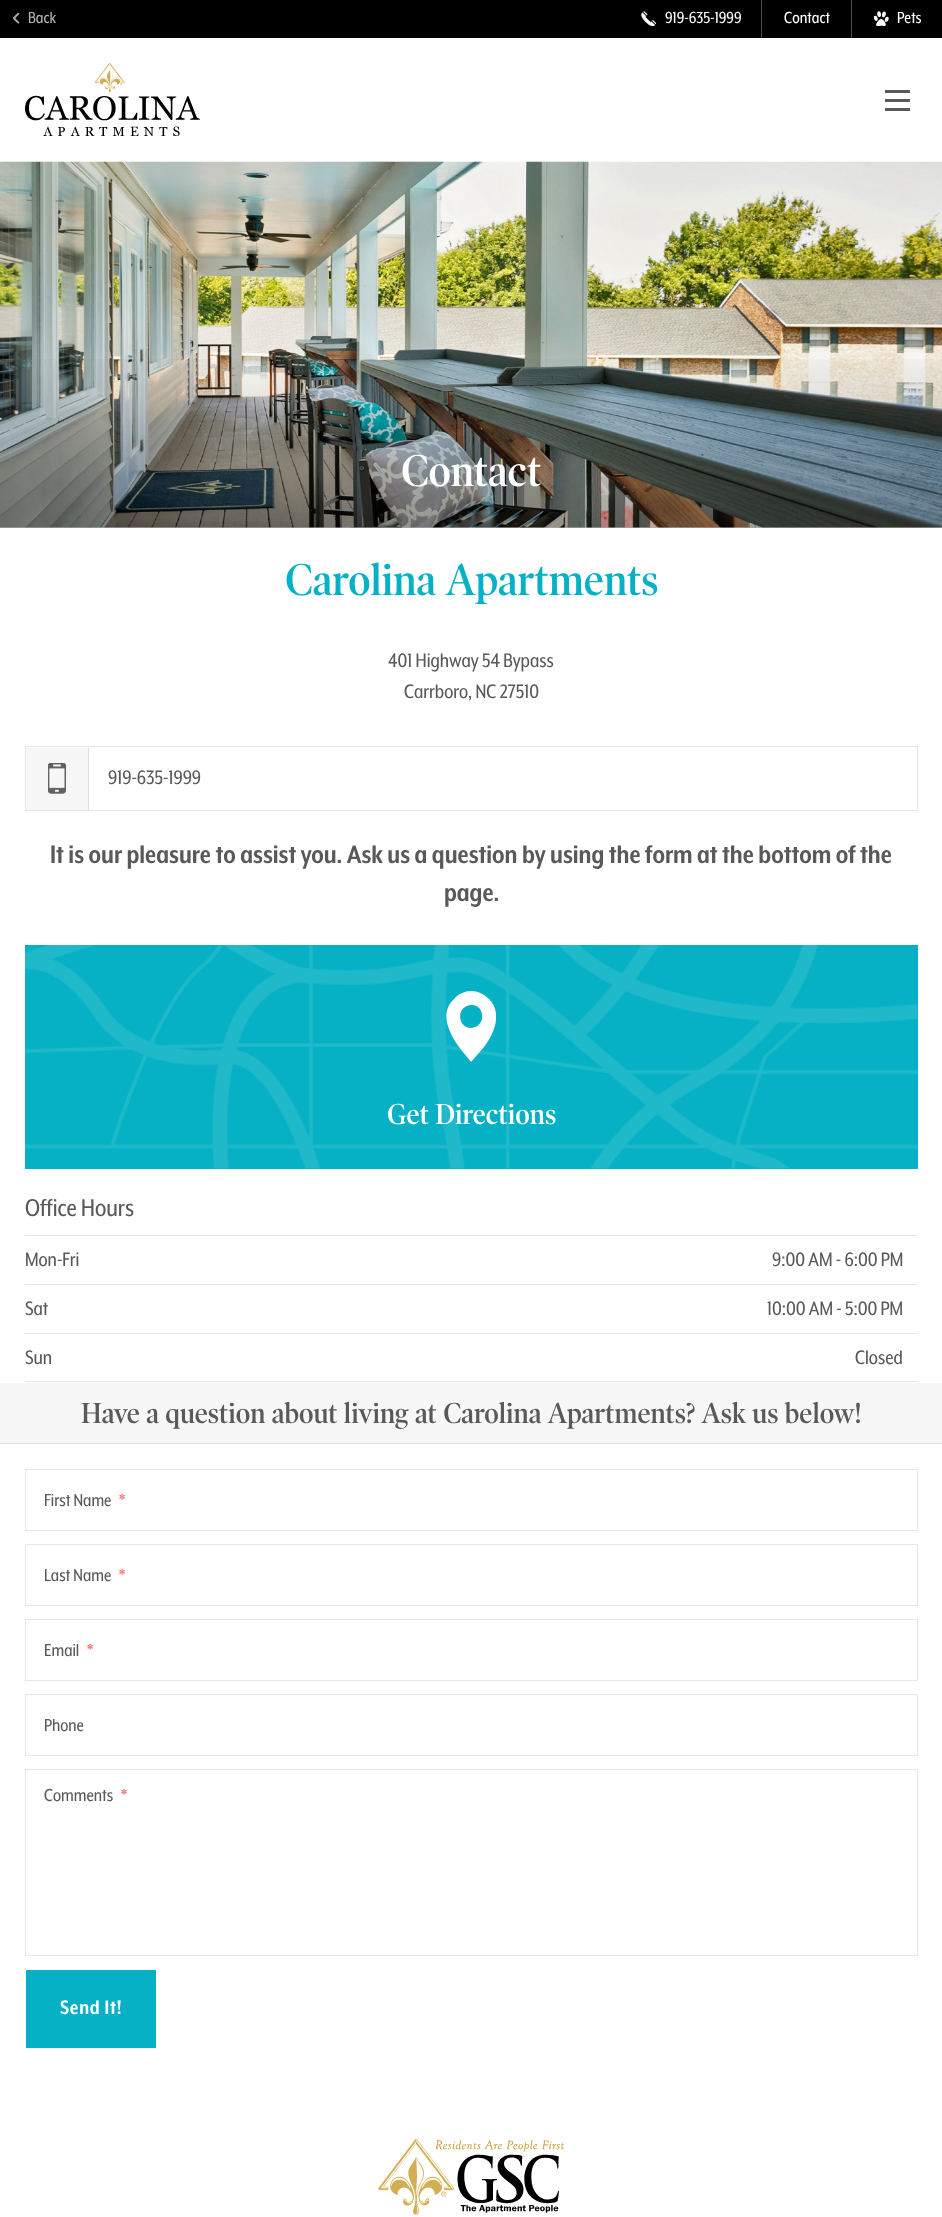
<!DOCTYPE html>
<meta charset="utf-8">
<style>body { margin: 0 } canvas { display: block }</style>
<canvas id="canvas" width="942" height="2217"></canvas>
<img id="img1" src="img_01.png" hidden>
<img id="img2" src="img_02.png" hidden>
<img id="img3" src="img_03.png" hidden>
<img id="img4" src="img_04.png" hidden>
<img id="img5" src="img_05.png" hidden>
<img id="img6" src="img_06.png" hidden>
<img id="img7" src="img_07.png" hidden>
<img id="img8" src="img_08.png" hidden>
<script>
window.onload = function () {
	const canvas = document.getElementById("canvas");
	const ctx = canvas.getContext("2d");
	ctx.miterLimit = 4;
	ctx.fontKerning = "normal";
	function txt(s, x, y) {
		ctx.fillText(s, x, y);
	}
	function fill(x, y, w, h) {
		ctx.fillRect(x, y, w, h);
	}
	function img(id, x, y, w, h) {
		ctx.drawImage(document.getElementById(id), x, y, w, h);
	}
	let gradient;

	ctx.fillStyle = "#FFFFFF";
	fill(0, 0, 942, 2217);
	ctx.fillStyle = "#000000";
	fill(0, 0, 942, 38);
	img("img1", 13, 13, 7, 11);
	img("img2", 641, 11, 15, 15);
	ctx.fillStyle = "#4D4D4D";
	fill(761, 0, 1, 38);
	fill(851, 0, 1, 38);
	img("img3", 874, 11, 15, 15);
	img("img4", 25, 63, 175, 73);
	ctx.fillStyle = "#595959";
	fill(885, 90, 25, 3);
	fill(885, 99, 25, 3);
	fill(885, 108, 25, 3);
	img("img5", 0, 161, 942, 367);
	gradient = ctx.createLinearGradient(471, 346, 471, 529);
	gradient.addColorStop(0, "rgba(0, 0, 0, 0)");
	gradient.addColorStop(1, "rgba(0, 0, 0, 0.3)");
	ctx.fillStyle = gradient;
	fill(0, 359, 942, 169);
	ctx.strokeStyle = "#E6E6E6";
	ctx.strokeRect(25.5, 746.5, 892, 64);
	ctx.fillStyle = "#F7F7F7";
	fill(26, 748, 62, 62);
	ctx.fillStyle = "#DEDEDE";
	fill(88, 748, 1, 62);
	img("img6", 48, 763, 18, 31);
	ctx.fillStyle = "#06B1C5";
	fill(25, 945, 893, 224);
	img("img7", 25, 945, 893, 224);
	ctx.save();
	ctx.beginPath();
	ctx.rect(446, 983, 50, 88);
	ctx.clip();
	ctx.fillStyle = "#FFFFFF";
	ctx.beginPath();
	ctx.moveTo(471, 1028);
	ctx.bezierCurveTo(457, 1028, 456, 1006, 471, 1005);
	ctx.bezierCurveTo(485, 1004, 487, 1027, 471, 1028);
	ctx.moveTo(471, 991);
	ctx.bezierCurveTo(465, 991, 458, 994, 454, 999);
	ctx.bezierCurveTo(439, 1013, 449, 1033, 459, 1047);
	ctx.lineTo(471, 1062);
	ctx.lineTo(484, 1047);
	ctx.bezierCurveTo(494, 1034, 503, 1013, 489, 999);
	ctx.bezierCurveTo(484, 994, 478, 991, 471, 991);
	ctx.fill();
	ctx.restore();
	ctx.fillStyle = "#E6E6E6";
	fill(25, 1235, 893, 1);
	fill(25, 1284, 893, 1);
	fill(25, 1333, 893, 1);
	fill(25, 1381, 893, 1);
	ctx.fillStyle = "#F7F7F7";
	fill(0, 1383, 942, 60);
	ctx.fillStyle = "#DEDEDE";
	fill(0, 1443, 942, 1);
	ctx.strokeRect(25.5, 1469.5, 892, 61);
	ctx.strokeRect(25.5, 1544.5, 892, 61);
	ctx.strokeRect(25.5, 1619.5, 892, 61);
	ctx.strokeRect(25.5, 1694.5, 892, 61);
	ctx.strokeRect(25.5, 1769.5, 892, 186);
	ctx.fillStyle = "#06B1C5";
	fill(26, 1970, 130, 78);
	img("img8", 378, 2139, 186, 76);
	ctx.font = "18.5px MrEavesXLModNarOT";
	ctx.fillStyle = "#B3B3B3";
	txt("Back", 28, 23);
	ctx.fillStyle = "#FFFFFF";
	txt("919-635-1999", 665, 23);
	txt("Contact", 784, 23);
	txt("Pets", 897, 23);
	ctx.font = "600 45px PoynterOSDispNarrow";
	txt("Contact", 401, 486);
	ctx.fillStyle = "#06B1C5";
	txt("Carolina Apartments", 285, 595);
	ctx.font = "22.5px MrEavesXLModNarOT";
	ctx.fillStyle = "#595959";
	txt("401 Highway 54 Bypass", 388, 667);
	txt("Carrboro, NC 27510", 404, 698);
	txt("919-635-1999", 108, 784);
	ctx.font = "bold 29.25px MrEavesXLModNarOT";
	txt("It is our pleasure to assist you. Ask us a question by using the form at the bottom of the", 50, 863);
	txt("page.", 444, 901);
	ctx.font = "600 29.25px PoynterOSDispNarrow";
	ctx.fillStyle = "#FFFFFF";
	txt("Get Directions", 387, 1124);
	ctx.font = "28px MrEavesXLModNarOT";
	ctx.fillStyle = "#595959";
	txt("Office Hours", 25, 1216);
	ctx.font = "22.5px MrEavesXLModNarOT";
	txt("Mon-Fri", 25, 1266);
	txt("9:00 AM - 6:00 PM", 772, 1266);
	txt("Sat", 25, 1315);
	txt("10:00 AM - 5:00 PM", 767, 1315);
	txt("Sun", 25, 1364);
	txt("Closed", 855, 1364);
	ctx.font = "600 29.25px PoynterOSDispNarrow";
	txt("Have a question about living at Carolina Apartments? Ask us below!", 81, 1423);
	ctx.font = "20px MrEavesXLModNarOT";
	txt("First Name", 44, 1506);
	ctx.fillStyle = "#F76161";
	txt("*", 119, 1506);
	ctx.fillStyle = "#595959";
	txt("Last Name", 44, 1581);
	ctx.fillStyle = "#F76161";
	txt("*", 119, 1581);
	ctx.fillStyle = "#595959";
	txt("Email", 44, 1656);
	ctx.fillStyle = "#F76161";
	txt("*", 87, 1656);
	ctx.fillStyle = "#595959";
	txt("Phone", 44, 1731);
	txt("Comments", 44, 1801);
	ctx.fillStyle = "#F76161";
	txt("*", 121, 1801);
	ctx.letterSpacing = "0.75px";
	ctx.font = "bold 22.5px MrEavesXLModNarOT";
	ctx.fillStyle = "#FFFFFF";
	txt("Send It!", 60, 2014);
};
</script>
